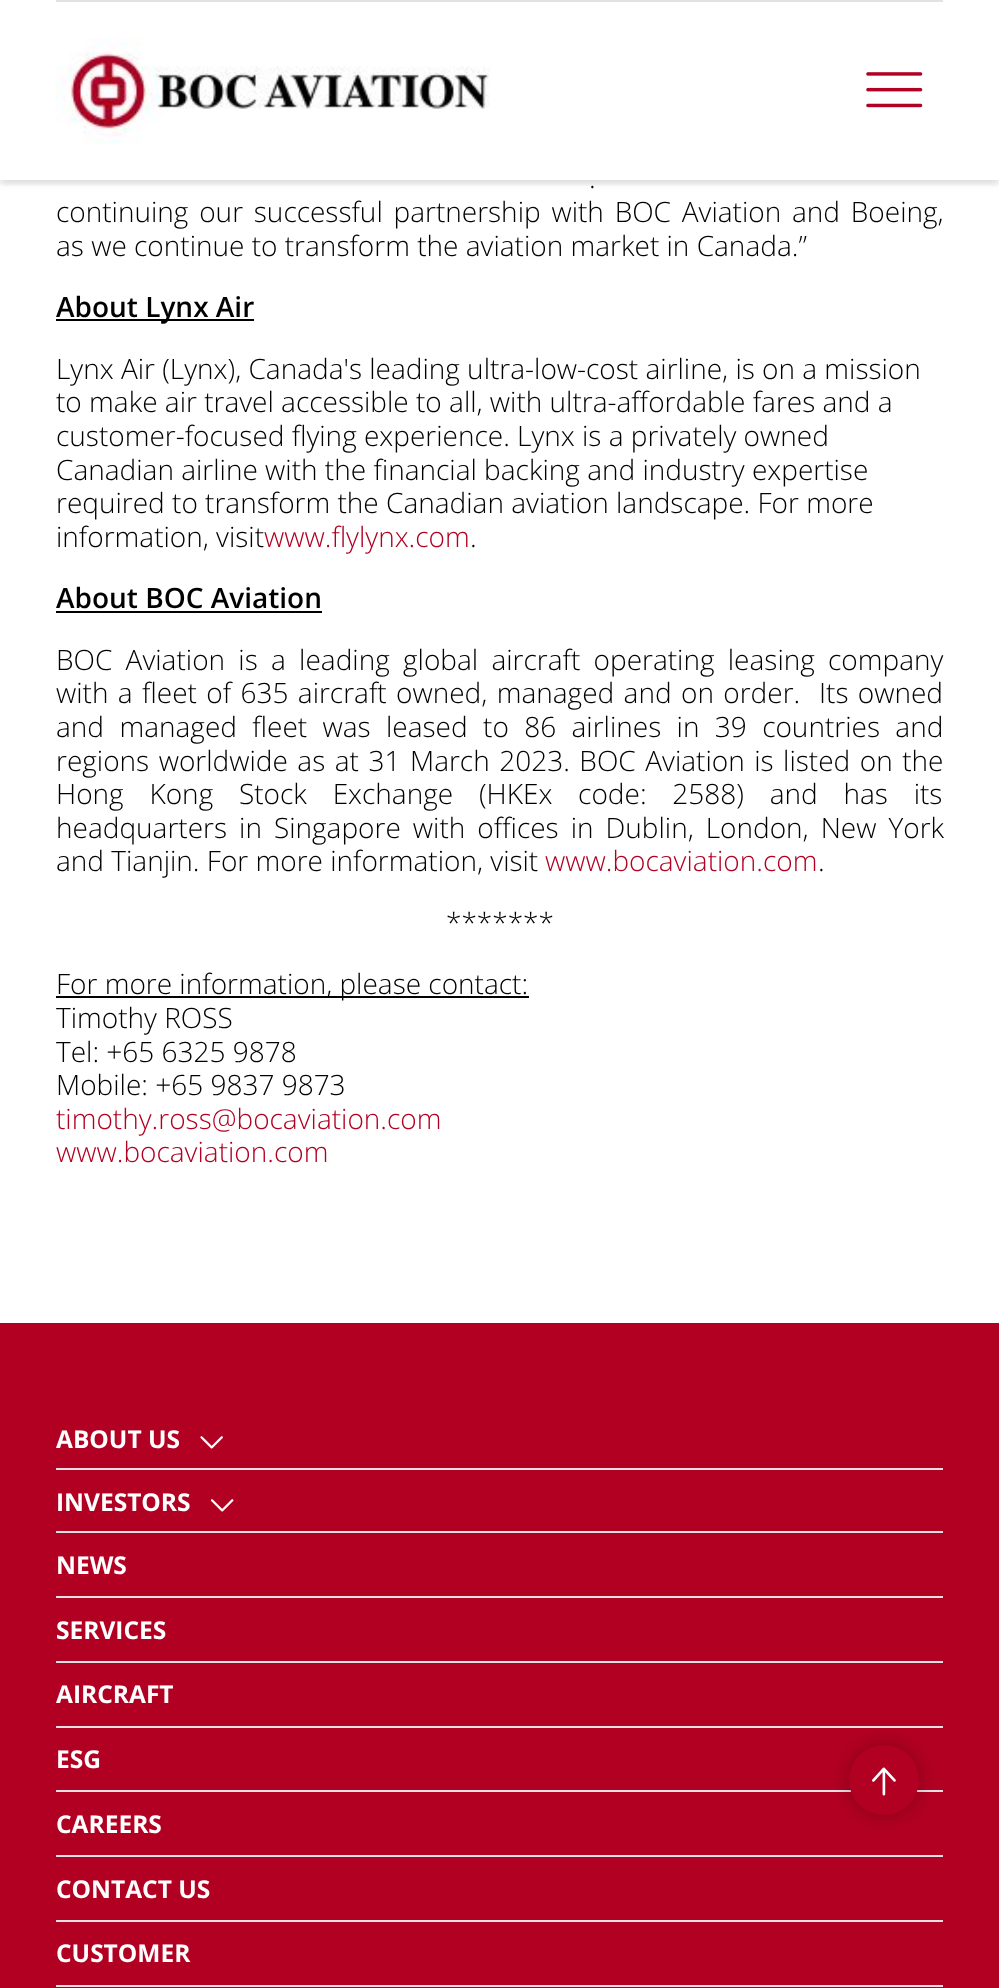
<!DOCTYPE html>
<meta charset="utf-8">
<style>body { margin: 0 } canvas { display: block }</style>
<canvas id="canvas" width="999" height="1988"></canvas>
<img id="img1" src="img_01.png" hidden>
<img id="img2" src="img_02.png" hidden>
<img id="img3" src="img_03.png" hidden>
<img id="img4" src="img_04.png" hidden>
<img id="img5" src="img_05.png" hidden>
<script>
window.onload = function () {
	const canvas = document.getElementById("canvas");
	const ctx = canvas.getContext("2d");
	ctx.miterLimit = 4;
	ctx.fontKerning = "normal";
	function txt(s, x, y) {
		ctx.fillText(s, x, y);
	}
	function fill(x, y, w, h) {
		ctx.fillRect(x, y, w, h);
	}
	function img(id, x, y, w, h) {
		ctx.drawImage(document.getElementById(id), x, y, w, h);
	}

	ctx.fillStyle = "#FFFFFF";
	fill(0, 0, 999, 1988);
	ctx.fillStyle = "rgba(0, 0, 0, 0.07)";
	ctx.filter = "blur(3.5px)";
	ctx.beginPath();
	ctx.rect(0, 4, 999, 180);
	ctx.fill();
	ctx.filter = "none";
	ctx.fillStyle = "#FFFFFF";
	fill(0, 0, 999, 180);
	ctx.fillStyle = "#E1E2E2";
	fill(56, 0, 887, 2);
	ctx.save();
	ctx.beginPath();
	ctx.rect(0, 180, 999, 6);
	ctx.clip();
	ctx.fillStyle = "rgba(0, 0, 0, 0.07)";
	ctx.filter = "blur(3.5px)";
	ctx.beginPath();
	ctx.rect(0, 5, 999, 179);
	ctx.fill();
	ctx.filter = "none";
	ctx.restore();
	img("img1", 56, 38, 434, 106);
	img("img2", 866, 72, 57, 36);
	ctx.fillStyle = "#000000";
	fill(56, 319, 198, 2);
	fill(56, 611, 266, 2);
	fill(56, 996, 473, 2);
	ctx.fillStyle = "#B20022";
	fill(0, 1323, 999, 665);
	ctx.fillStyle = "#DEE2E6";
	fill(56, 1468, 887, 2);
	img("img3", 200, 1436, 23, 13);
	fill(56, 1531, 887, 2);
	img("img4", 210, 1499, 24, 13);
	fill(56, 1596, 887, 2);
	fill(56, 1661, 887, 2);
	fill(56, 1726, 887, 2);
	fill(56, 1790, 887, 2);
	fill(56, 1855, 887, 2);
	fill(56, 1920, 887, 2);
	fill(56, 1985, 887, 2);
	ctx.fillStyle = "rgba(0, 0, 0, 0.25)";
	ctx.filter = "blur(9px)";
	ctx.beginPath();
	ctx.roundRect(849, 1745, 70, 70, 35);
	ctx.fill();
	ctx.filter = "none";
	ctx.fillStyle = "#B20022";
	ctx.beginPath();
	ctx.arc(884, 1780, 35, 0, Math.PI * 2);
	ctx.fill();
	img("img5", 872, 1767, 24, 29);
	ctx.wordSpacing = "3px";
	ctx.font = "300 28px Open Sans";
	ctx.fillStyle = "#000000";
	txt(".", 589, 188);
	ctx.wordSpacing = "3.5px";
	txt("continuing our successful partnership with BOC Aviation and Boeing,", 56, 222);
	ctx.wordSpacing = "0px";
	txt("as we continue to transform the aviation market in Canada.”", 56, 256);
	ctx.font = "600 28px Open Sans";
	txt("About Lynx Air", 56, 317);
	ctx.font = "300 28px Open Sans";
	txt("Lynx Air (Lynx), Canada's leading ultra-low-cost airline, is on a mission", 56, 379);
	txt("to make air travel accessible to all, with ultra-affordable fares and a", 56, 412);
	txt("customer-focused flying experience. Lynx is a privately owned", 56, 446);
	txt("Canadian airline with the financial backing and industry expertise", 56, 480);
	txt("required to transform the Canadian aviation landscape. For more", 56, 513);
	txt("information, visit", 56, 547);
	ctx.fillStyle = "#B20022";
	txt("www.flylynx.com", 264, 547);
	ctx.fillStyle = "#000000";
	txt(".", 470, 547);
	ctx.font = "600 28px Open Sans";
	txt("About BOC Aviation", 56, 608);
	ctx.wordSpacing = "6px";
	ctx.font = "300 28px Open Sans";
	txt("BOC Aviation is a leading global aircraft operating leasing company", 56, 670);
	ctx.wordSpacing = "2.1px";
	txt("with a fleet of 635 aircraft owned, managed and on order.  Its owned", 56, 703);
	ctx.wordSpacing = "8.1px";
	txt("and managed fleet was leased to 86 airlines in 39 countries and", 56, 737);
	ctx.wordSpacing = "2.25px";
	txt("regions worldwide as at 31 March 2023. BOC Aviation is listed on the", 56, 771);
	ctx.wordSpacing = "18.5px";
	txt("Hong Kong Stock Exchange (HKEx code: 2588) and has its", 56, 804);
	ctx.wordSpacing = "4.75px";
	txt("headquarters in Singapore with offices in Dublin, London, New York", 56, 838);
	ctx.wordSpacing = "0px";
	txt("and Tianjin. For more information, visit", 56, 871);
	ctx.fillStyle = "#B20022";
	txt("www.bocaviation.com", 545, 871);
	ctx.fillStyle = "#000000";
	txt(".", 818, 871);
	txt("*******", 446, 933);
	txt("For more information, please contact:", 56, 994);
	txt("Timothy ROSS", 56, 1028);
	txt("Tel: +65 6325 9878", 56, 1062);
	txt("Mobile: +65 9837 9873", 56, 1095);
	ctx.fillStyle = "#B20022";
	txt("timothy.ross@bocaviation.com", 56, 1129);
	txt("www.bocaviation.com", 56, 1162);
	ctx.font = "bold 24.5px Open Sans";
	ctx.fillStyle = "#FFFFFF";
	txt("ABOUT US", 56, 1448);
	txt("INVESTORS", 56, 1511);
	txt("NEWS", 56, 1574);
	txt("SERVICES", 56, 1639);
	txt("AIRCRAFT", 56, 1703);
	txt("ESG", 56, 1768);
	txt("CAREERS", 56, 1833);
	txt("CONTACT US", 56, 1898);
	txt("CUSTOMER", 56, 1962);
};
</script>
